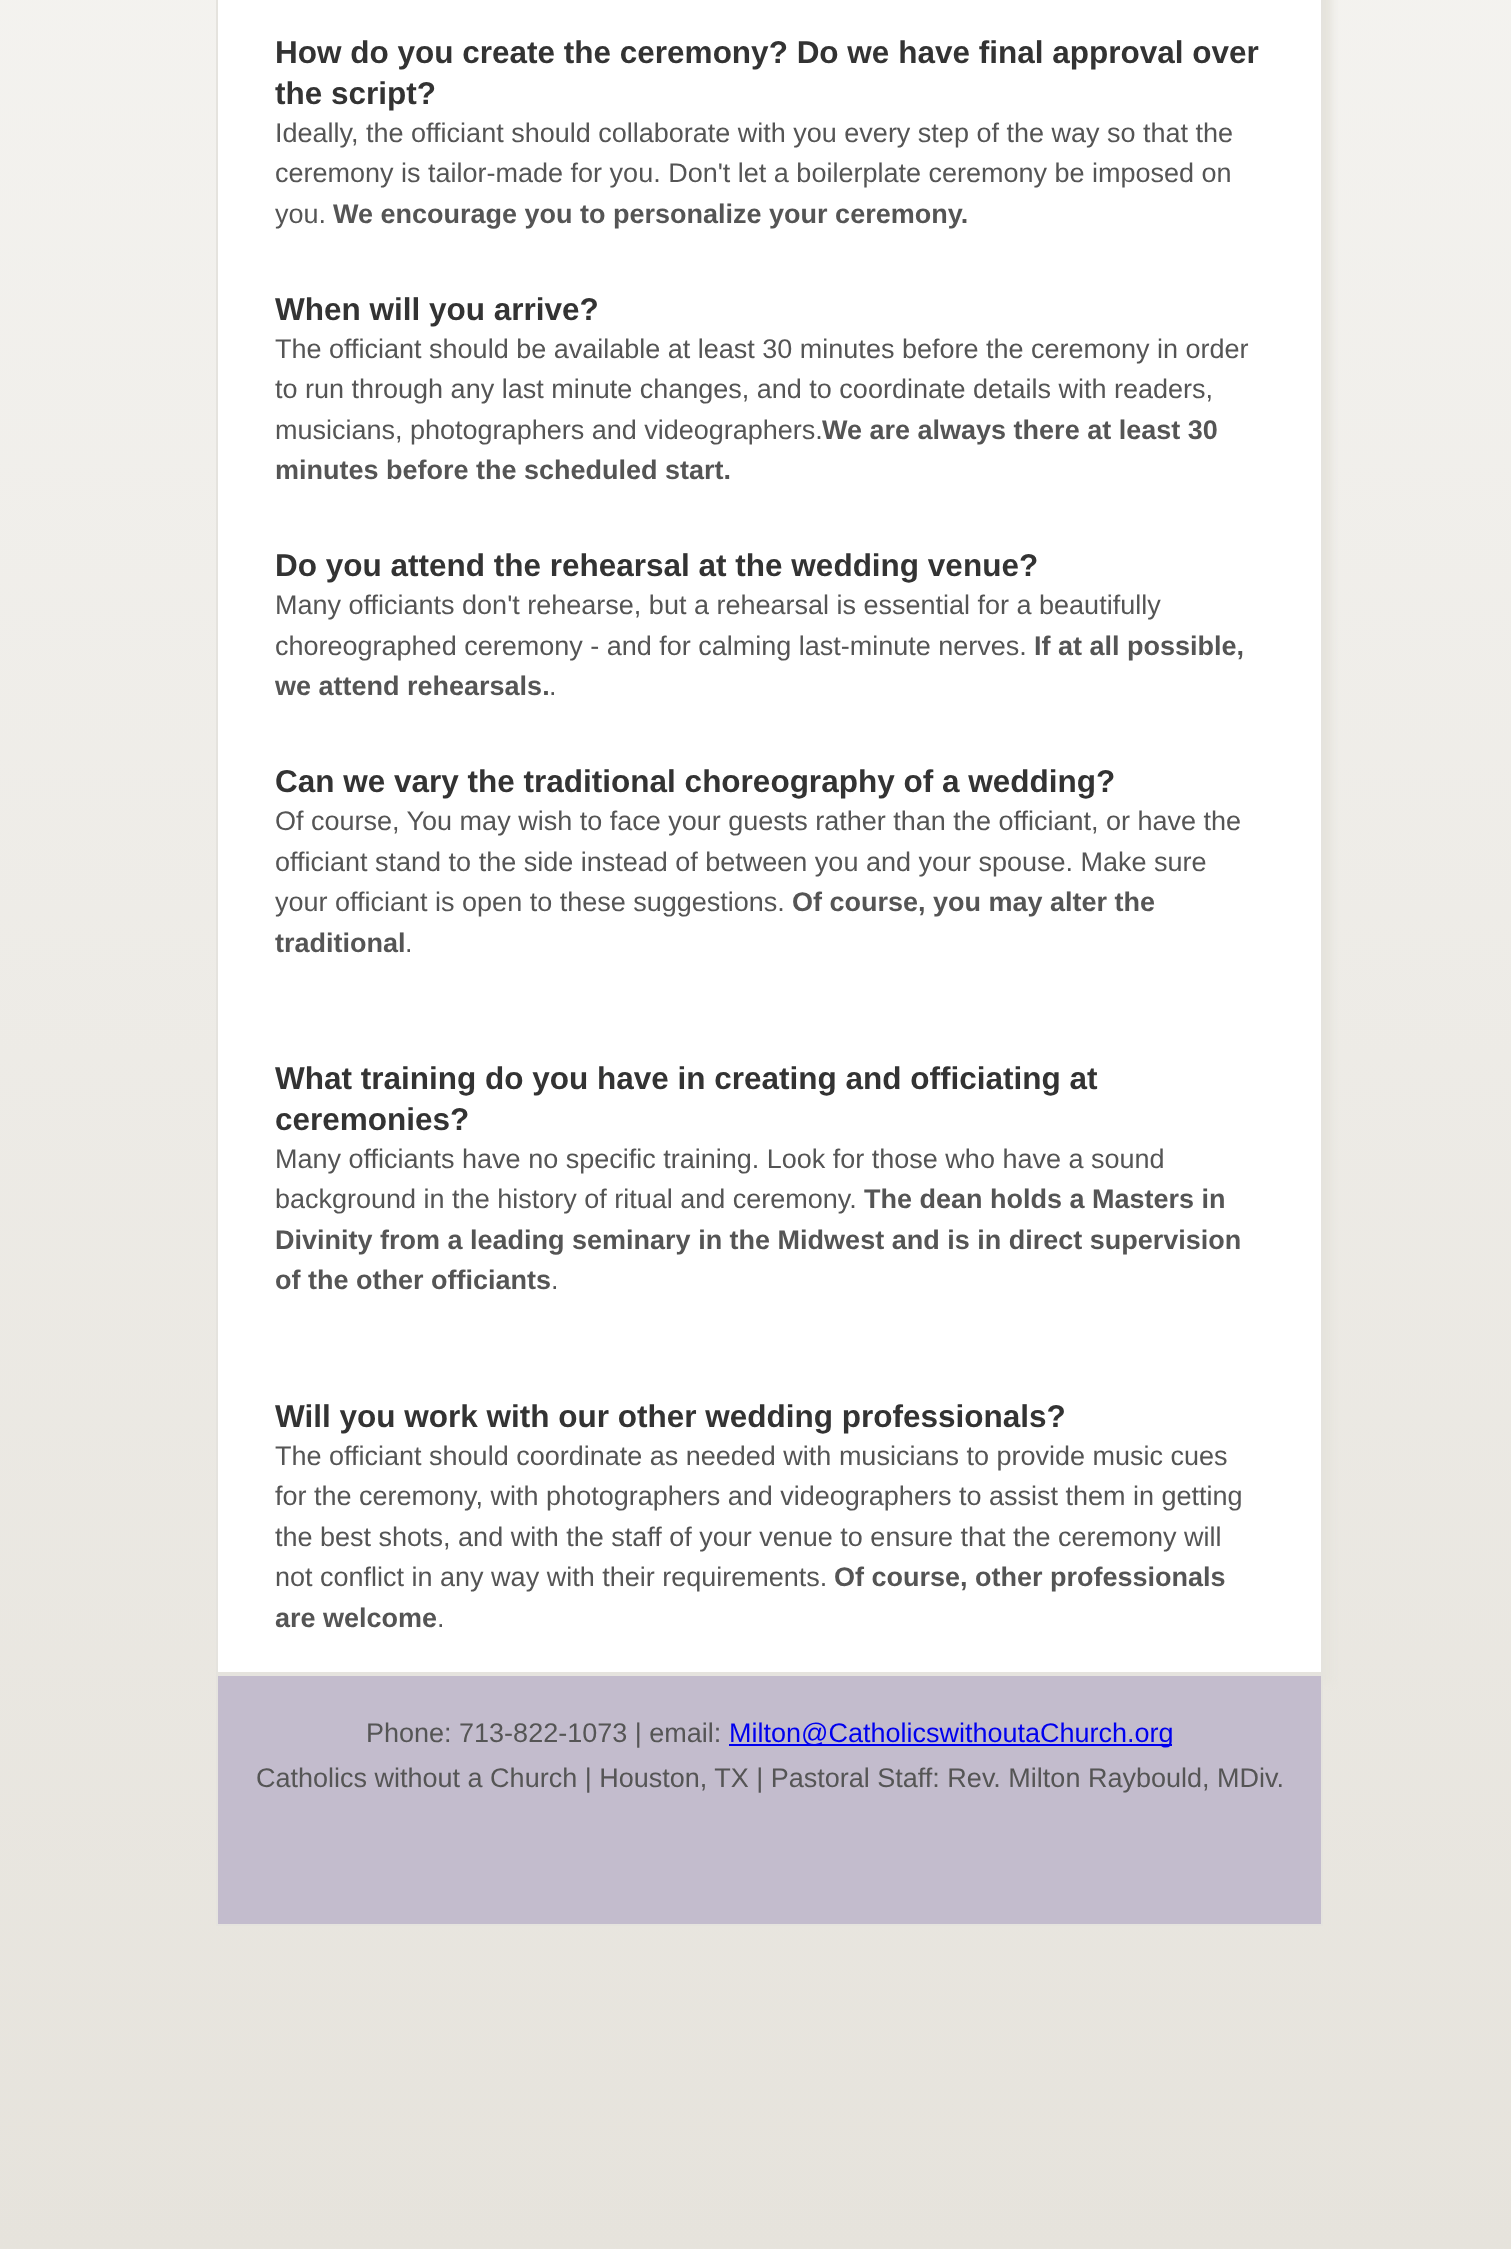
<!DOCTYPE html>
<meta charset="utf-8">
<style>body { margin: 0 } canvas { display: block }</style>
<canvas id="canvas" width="1511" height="2249"></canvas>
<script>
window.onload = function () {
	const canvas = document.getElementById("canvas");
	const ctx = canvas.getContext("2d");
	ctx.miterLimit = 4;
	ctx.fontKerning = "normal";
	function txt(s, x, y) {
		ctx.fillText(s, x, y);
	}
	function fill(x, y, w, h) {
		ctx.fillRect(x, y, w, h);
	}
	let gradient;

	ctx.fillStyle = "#FFFFFF";
	fill(0, 0, 1511, 2249);
	gradient = ctx.createLinearGradient(0, -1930, 0, 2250);
	gradient.addColorStop(0, "#FFFFFF");
	gradient.addColorStop(1, "#E6E3DC");
	ctx.fillStyle = gradient;
	fill(0, 0, 1511, 2249);
	ctx.fillStyle = "#E6E4DD";
	ctx.filter = "blur(3.5px)";
	ctx.beginPath();
	ctx.rect(225, -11, 1107, 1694);
	ctx.fill();
	ctx.filter = "none";
	ctx.fillStyle = "#FFFFFF";
	ctx.beginPath();
	ctx.rect(217, -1, 1105, 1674);
	ctx.fill();
	ctx.strokeStyle = "#E5E3DE";
	ctx.lineWidth = 2;
	ctx.stroke();
	ctx.fillStyle = "#C3BCCD";
	ctx.beginPath();
	ctx.rect(217, 1675, 1105, 250);
	ctx.fill();
	ctx.stroke();
	ctx.fillStyle = "#0000EE";
	fill(729, 1744, 443, 2);
	ctx.font = "bold 31.5px Liberation Sans";
	ctx.fillStyle = "#333333";
	txt("How do you create the ceremony? Do we have final approval over", 275, 63);
	txt("the script?", 275, 104);
	ctx.font = "27px Liberation Sans";
	ctx.fillStyle = "#555555";
	txt("Ideally, the officiant should collaborate with you every step of the way so that the", 275, 142);
	txt("ceremony is tailor-made for you. Don't let a boilerplate ceremony be imposed on", 275, 182);
	txt("you.", 275, 223);
	ctx.font = "bold 27px Liberation Sans";
	txt("We encourage you to personalize your ceremony.", 333, 223);
	ctx.font = "bold 31.5px Liberation Sans";
	ctx.fillStyle = "#333333";
	txt("When will you arrive?", 275, 320);
	ctx.font = "27px Liberation Sans";
	ctx.fillStyle = "#555555";
	txt("The officiant should be available at least 30 minutes before the ceremony in order", 275, 358);
	txt("to run through any last minute changes, and to coordinate details with readers,", 275, 398);
	txt("musicians, photographers and videographers.", 275, 439);
	ctx.font = "bold 27px Liberation Sans";
	txt("We are always there at least 30", 822, 439);
	txt("minutes before the scheduled start.", 275, 479);
	ctx.font = "bold 31.5px Liberation Sans";
	ctx.fillStyle = "#333333";
	txt("Do you attend the rehearsal at the wedding venue?", 275, 576);
	ctx.font = "27px Liberation Sans";
	ctx.fillStyle = "#555555";
	txt("Many officiants don't rehearse, but a rehearsal is essential for a beautifully", 275, 614);
	txt("choreographed ceremony - and for calming last-minute nerves.", 275, 655);
	ctx.font = "bold 27px Liberation Sans";
	txt("If at all possible,", 1034, 655);
	txt("we attend rehearsals.", 275, 695);
	ctx.font = "27px Liberation Sans";
	txt(".", 549, 695);
	ctx.font = "bold 31.5px Liberation Sans";
	ctx.fillStyle = "#333333";
	txt("Can we vary the traditional choreography of a wedding?", 275, 792);
	ctx.font = "27px Liberation Sans";
	ctx.fillStyle = "#555555";
	txt("Of course, You may wish to face your guests rather than the officiant, or have the", 275, 830);
	txt("officiant stand to the side instead of between you and your spouse. Make sure", 275, 871);
	txt("your officiant is open to these suggestions.", 275, 911);
	ctx.font = "bold 27px Liberation Sans";
	txt("Of course, you may alter the", 792, 911);
	txt("traditional", 275, 952);
	ctx.font = "27px Liberation Sans";
	txt(".", 405, 952);
	ctx.font = "bold 31.5px Liberation Sans";
	ctx.fillStyle = "#333333";
	txt("What training do you have in creating and officiating at", 275, 1089);
	txt("ceremonies?", 275, 1130);
	ctx.font = "27px Liberation Sans";
	ctx.fillStyle = "#555555";
	txt("Many officiants have no specific training. Look for those who have a sound", 275, 1168);
	txt("background in the history of ritual and ceremony.", 275, 1208);
	ctx.font = "bold 27px Liberation Sans";
	txt("The dean holds a Masters in", 864, 1208);
	txt("Divinity from a leading seminary in the Midwest and is in direct supervision", 275, 1249);
	txt("of the other officiants", 275, 1289);
	ctx.font = "27px Liberation Sans";
	txt(".", 551, 1289);
	ctx.font = "bold 31.5px Liberation Sans";
	ctx.fillStyle = "#333333";
	txt("Will you work with our other wedding professionals?", 275, 1427);
	ctx.font = "27px Liberation Sans";
	ctx.fillStyle = "#555555";
	txt("The officiant should coordinate as needed with musicians to provide music cues", 275, 1465);
	txt("for the ceremony, with photographers and videographers to assist them in getting", 275, 1505);
	txt("the best shots, and with the staff of your venue to ensure that the ceremony will", 275, 1546);
	txt("not conflict in any way with their requirements.", 275, 1586);
	ctx.font = "bold 27px Liberation Sans";
	txt("Of course, other professionals", 834, 1586);
	txt("are welcome", 275, 1627);
	ctx.font = "27px Liberation Sans";
	txt(".", 437, 1627);
	txt("Phone: 713-822-1073 | email:", 366, 1742);
	ctx.fillStyle = "#0000EE";
	txt("Milton@CatholicswithoutaChurch.org", 729, 1742);
	ctx.fillStyle = "#555555";
	txt("Catholics without a Church | Houston, TX | Pastoral Staff: Rev. Milton Raybould, MDiv.", 256, 1787);
};
</script>
